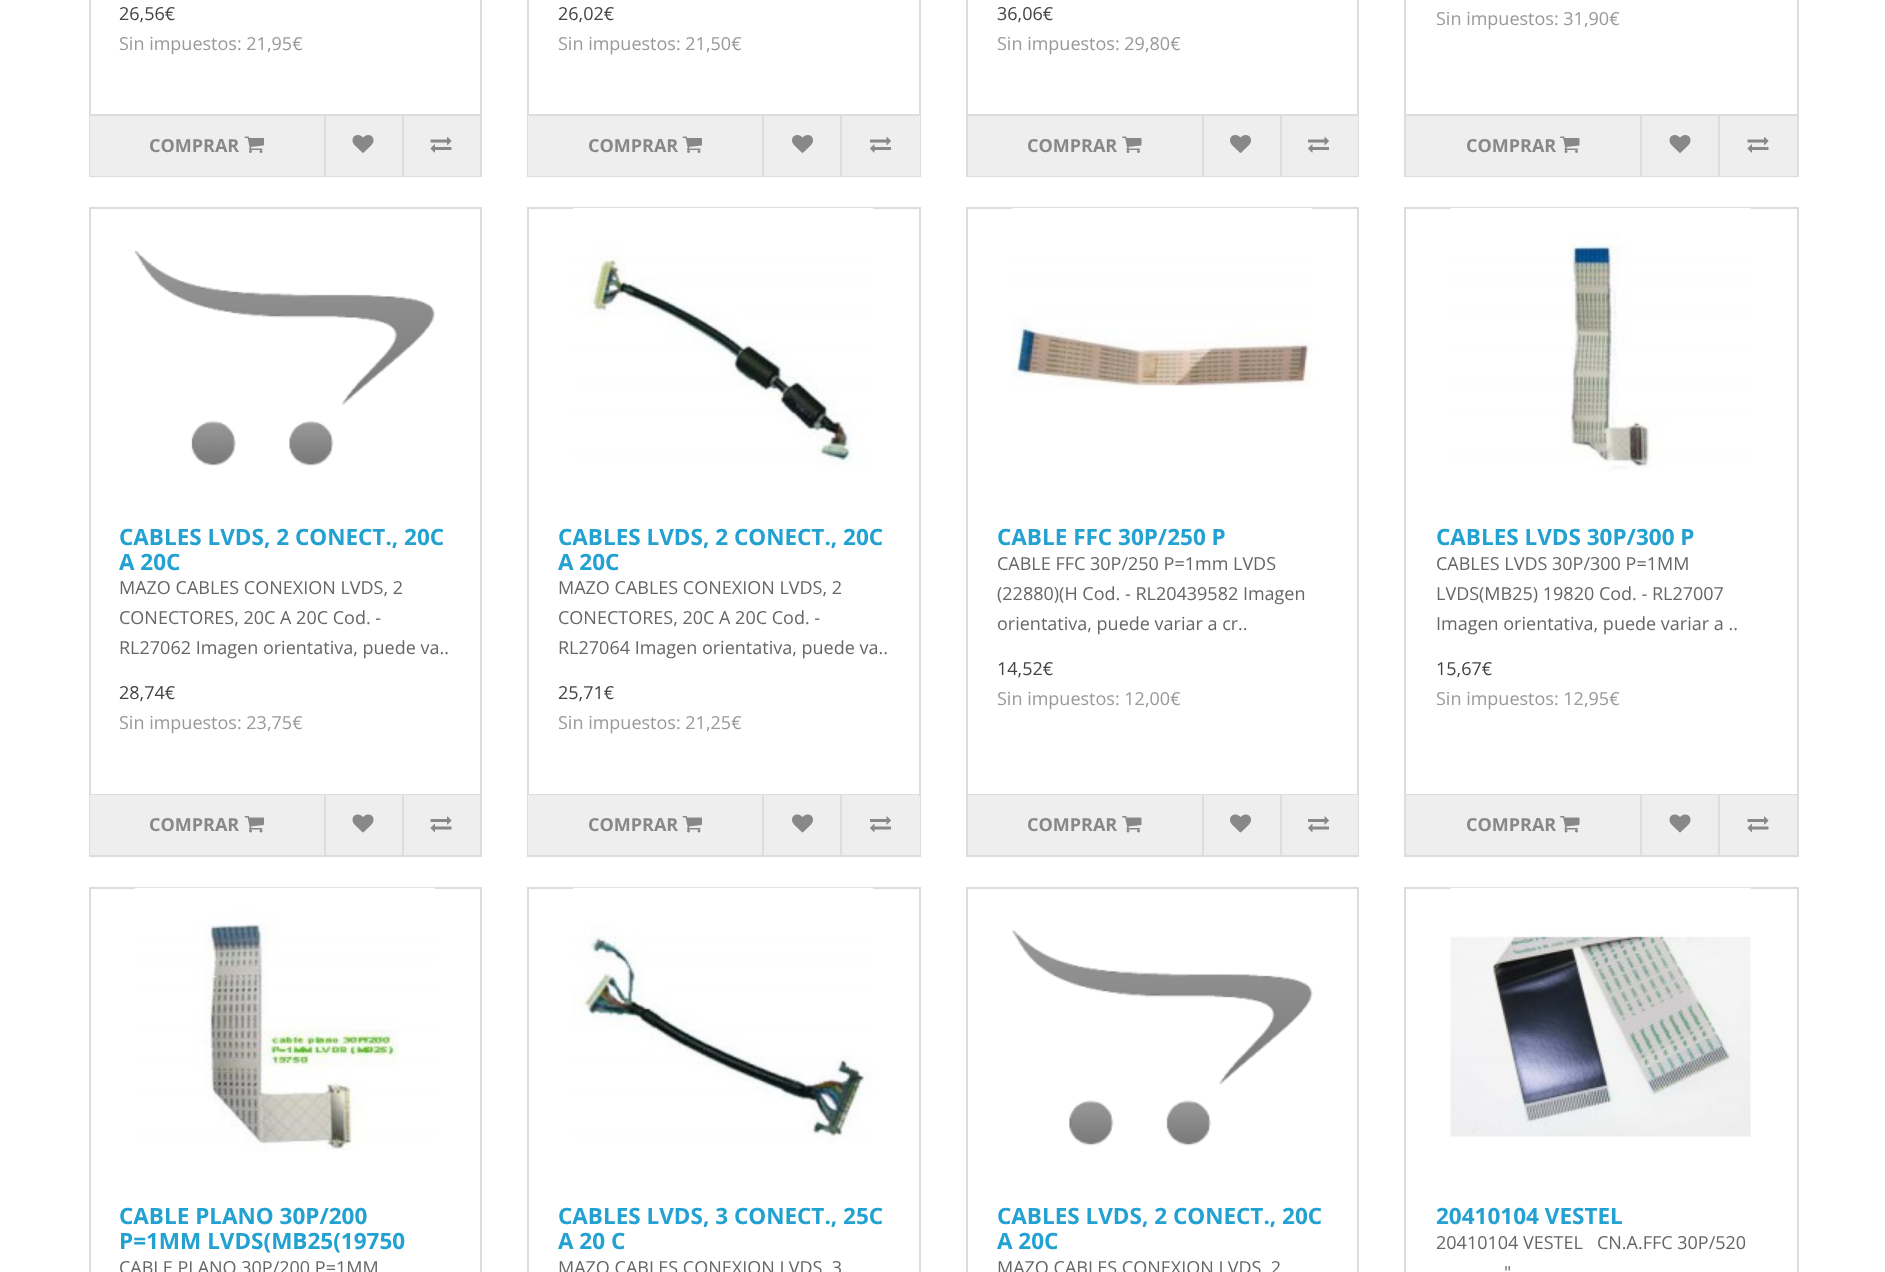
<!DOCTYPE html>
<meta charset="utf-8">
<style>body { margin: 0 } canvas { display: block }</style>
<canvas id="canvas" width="1885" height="1272"></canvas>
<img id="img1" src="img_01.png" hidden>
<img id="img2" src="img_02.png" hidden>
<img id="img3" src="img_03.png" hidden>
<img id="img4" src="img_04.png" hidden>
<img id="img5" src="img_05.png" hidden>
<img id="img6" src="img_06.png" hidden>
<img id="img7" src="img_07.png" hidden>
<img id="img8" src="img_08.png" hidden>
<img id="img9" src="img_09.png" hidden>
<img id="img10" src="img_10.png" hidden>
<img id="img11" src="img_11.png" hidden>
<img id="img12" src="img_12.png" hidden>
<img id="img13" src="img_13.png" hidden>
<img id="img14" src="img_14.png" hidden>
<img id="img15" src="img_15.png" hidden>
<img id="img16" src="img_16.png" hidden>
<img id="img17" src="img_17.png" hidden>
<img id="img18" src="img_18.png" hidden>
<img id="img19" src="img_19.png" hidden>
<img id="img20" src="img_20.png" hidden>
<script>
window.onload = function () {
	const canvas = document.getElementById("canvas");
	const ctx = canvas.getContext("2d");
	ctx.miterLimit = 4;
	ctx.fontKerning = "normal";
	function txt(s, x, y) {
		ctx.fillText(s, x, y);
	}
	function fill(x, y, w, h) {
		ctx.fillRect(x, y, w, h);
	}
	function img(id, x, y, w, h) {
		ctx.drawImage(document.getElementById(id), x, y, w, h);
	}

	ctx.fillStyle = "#FFFFFF";
	fill(0, 0, 1885, 1272);
	ctx.strokeStyle = "#DDDDDD";
	ctx.lineWidth = 2;
	ctx.strokeRect(90, -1, 391, 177);
	ctx.fillStyle = "#EEEEEE";
	fill(90, 116, 390, 60);
	ctx.fillStyle = "#DDDDDD";
	fill(90, 114, 390, 2);
	img("img1", 244, 136, 20, 17);
	fill(324, 116, 2, 60);
	img("img2", 352, 135, 22, 18);
	fill(402, 116, 2, 60);
	img("img3", 430, 137, 22, 16);
	ctx.strokeRect(528, -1, 392, 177);
	ctx.fillStyle = "#EEEEEE";
	fill(528, 116, 392, 60);
	ctx.fillStyle = "#DDDDDD";
	fill(528, 114, 392, 2);
	img("img1", 682, 136, 20, 17);
	fill(762, 116, 2, 60);
	img("img4", 792, 135, 21, 18);
	fill(840, 116, 2, 60);
	img("img5", 870, 137, 21, 16);
	ctx.strokeRect(967, -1, 391, 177);
	ctx.fillStyle = "#EEEEEE";
	fill(968, 116, 390, 60);
	ctx.fillStyle = "#DDDDDD";
	fill(968, 114, 390, 2);
	img("img6", 1122, 136, 20, 17);
	fill(1202, 116, 2, 60);
	img("img4", 1230, 135, 21, 18);
	fill(1280, 116, 2, 60);
	img("img5", 1308, 137, 21, 16);
	ctx.strokeRect(1405, -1, 393, 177);
	ctx.fillStyle = "#EEEEEE";
	fill(1406, 116, 391, 60);
	ctx.fillStyle = "#DDDDDD";
	fill(1406, 114, 391, 2);
	img("img6", 1560, 136, 20, 17);
	fill(1640, 116, 2, 60);
	img("img2", 1669, 135, 22, 18);
	fill(1718, 116, 2, 60);
	img("img3", 1747, 137, 22, 16);
	ctx.strokeRect(90, 208, 391, 648);
	img("img7", 135, 250, 300, 216);
	fill(90, 794, 390, 1);
	ctx.fillStyle = "#EEEEEE";
	fill(90, 795, 234, 60);
	img("img8", 244, 816, 20, 17);
	fill(326, 795, 76, 60);
	ctx.fillStyle = "#DDDDDD";
	fill(324, 795, 2, 60);
	img("img9", 352, 814, 22, 19);
	ctx.fillStyle = "#EEEEEE";
	fill(404, 795, 76, 60);
	ctx.fillStyle = "#DDDDDD";
	fill(402, 795, 2, 60);
	img("img10", 430, 816, 22, 16);
	ctx.strokeRect(528, 208, 392, 648);
	img("img11", 573, 208, 300, 258);
	ctx.fillStyle = "#EEEEEE";
	fill(918, 796, 2, 59);
	ctx.fillStyle = "#DDDDDD";
	fill(528, 794, 392, 2);
	ctx.fillStyle = "#EEEEEE";
	fill(528, 795, 234, 60);
	img("img8", 682, 816, 20, 17);
	fill(764, 795, 76, 60);
	ctx.fillStyle = "#DDDDDD";
	fill(762, 795, 2, 60);
	img("img12", 792, 814, 21, 19);
	ctx.fillStyle = "#EEEEEE";
	fill(842, 795, 76, 60);
	ctx.fillStyle = "#DDDDDD";
	fill(840, 795, 2, 60);
	img("img13", 870, 816, 21, 16);
	ctx.strokeRect(967, 208, 391, 648);
	img("img14", 1012, 208, 301, 181);
	fill(968, 794, 390, 1);
	ctx.fillStyle = "#EEEEEE";
	fill(968, 795, 234, 60);
	img("img15", 1122, 816, 20, 17);
	fill(1204, 795, 76, 60);
	ctx.fillStyle = "#DDDDDD";
	fill(1202, 795, 2, 60);
	img("img12", 1230, 814, 21, 19);
	ctx.fillStyle = "#EEEEEE";
	fill(1282, 795, 76, 60);
	ctx.fillStyle = "#DDDDDD";
	fill(1280, 795, 2, 60);
	img("img13", 1308, 816, 21, 16);
	ctx.strokeRect(1405, 208, 393, 648);
	img("img16", 1450, 208, 301, 264);
	ctx.fillStyle = "#EEEEEE";
	fill(1796, 796, 1, 59);
	ctx.fillStyle = "#DDDDDD";
	fill(1406, 794, 391, 2);
	ctx.fillStyle = "#EEEEEE";
	fill(1406, 795, 234, 60);
	img("img15", 1560, 816, 20, 17);
	fill(1642, 795, 76, 60);
	ctx.fillStyle = "#DDDDDD";
	fill(1640, 795, 2, 60);
	img("img9", 1669, 814, 22, 19);
	ctx.fillStyle = "#EEEEEE";
	fill(1720, 795, 76, 60);
	ctx.fillStyle = "#DDDDDD";
	fill(1718, 795, 2, 60);
	img("img10", 1747, 816, 22, 16);
	ctx.strokeRect(90, 888, 391, 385);
	img("img17", 135, 887, 300, 265);
	ctx.strokeRect(528, 888, 392, 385);
	img("img18", 573, 887, 300, 256);
	ctx.strokeRect(967, 888, 391, 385);
	img("img19", 1012, 929, 301, 217);
	ctx.strokeRect(1405, 888, 393, 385);
	img("img20", 1450, 887, 301, 250);
	ctx.font = "18px Open Sans";
	ctx.fillStyle = "#444444";
	txt("26,56€", 119, 20);
	ctx.fillStyle = "#999999";
	txt("Sin impuestos: 21,95€", 119, 50);
	ctx.font = "bold 18px Open Sans";
	ctx.fillStyle = "#888888";
	txt("COMPRAR", 149, 152);
	ctx.font = "18px Open Sans";
	ctx.fillStyle = "#444444";
	txt("26,02€", 558, 20);
	ctx.fillStyle = "#999999";
	txt("Sin impuestos: 21,50€", 558, 50);
	ctx.font = "bold 18px Open Sans";
	ctx.fillStyle = "#888888";
	txt("COMPRAR", 588, 152);
	ctx.font = "18px Open Sans";
	ctx.fillStyle = "#444444";
	txt("36,06€", 997, 20);
	ctx.fillStyle = "#999999";
	txt("Sin impuestos: 29,80€", 997, 50);
	ctx.font = "bold 18px Open Sans";
	ctx.fillStyle = "#888888";
	txt("COMPRAR", 1027, 152);
	ctx.font = "18px Open Sans";
	ctx.fillStyle = "#999999";
	txt("Sin impuestos: 31,90€", 1436, 25);
	ctx.font = "bold 18px Open Sans";
	ctx.fillStyle = "#888888";
	txt("COMPRAR", 1466, 152);
	ctx.font = "bold 22.5px Open Sans";
	ctx.fillStyle = "#23A1D1";
	txt("CABLES LVDS, 2 CONECT., 20C", 119, 545);
	txt("A 20C", 119, 570);
	ctx.font = "18px Open Sans";
	ctx.fillStyle = "#666666";
	txt("MAZO CABLES CONEXION LVDS, 2", 119, 594);
	txt("CONECTORES, 20C A 20C Cod. -", 119, 624);
	txt("RL27062 Imagen orientativa, puede va..", 119, 654);
	ctx.fillStyle = "#444444";
	txt("28,74€", 119, 699);
	ctx.fillStyle = "#999999";
	txt("Sin impuestos: 23,75€", 119, 729);
	ctx.font = "bold 18px Open Sans";
	ctx.fillStyle = "#888888";
	txt("COMPRAR", 149, 831);
	ctx.font = "bold 22.5px Open Sans";
	ctx.fillStyle = "#23A1D1";
	txt("CABLES LVDS, 2 CONECT., 20C", 558, 545);
	txt("A 20C", 558, 570);
	ctx.font = "18px Open Sans";
	ctx.fillStyle = "#666666";
	txt("MAZO CABLES CONEXION LVDS, 2", 558, 594);
	txt("CONECTORES, 20C A 20C Cod. -", 558, 624);
	txt("RL27064 Imagen orientativa, puede va..", 558, 654);
	ctx.fillStyle = "#444444";
	txt("25,71€", 558, 699);
	ctx.fillStyle = "#999999";
	txt("Sin impuestos: 21,25€", 558, 729);
	ctx.font = "bold 18px Open Sans";
	ctx.fillStyle = "#888888";
	txt("COMPRAR", 588, 831);
	ctx.font = "bold 22.5px Open Sans";
	ctx.fillStyle = "#23A1D1";
	txt("CABLE FFC 30P/250 P", 997, 545);
	ctx.font = "18px Open Sans";
	ctx.fillStyle = "#666666";
	txt("CABLE FFC 30P/250 P=1mm LVDS", 997, 570);
	txt("(22880)(H Cod. - RL20439582 Imagen", 997, 600);
	txt("orientativa, puede variar a cr..", 997, 630);
	ctx.fillStyle = "#444444";
	txt("14,52€", 997, 675);
	ctx.fillStyle = "#999999";
	txt("Sin impuestos: 12,00€", 997, 705);
	ctx.font = "bold 18px Open Sans";
	ctx.fillStyle = "#888888";
	txt("COMPRAR", 1027, 831);
	ctx.font = "bold 22.5px Open Sans";
	ctx.fillStyle = "#23A1D1";
	txt("CABLES LVDS 30P/300 P", 1436, 545);
	ctx.font = "18px Open Sans";
	ctx.fillStyle = "#666666";
	txt("CABLES LVDS 30P/300 P=1MM", 1436, 570);
	txt("LVDS(MB25) 19820 Cod. - RL27007", 1436, 600);
	txt("Imagen orientativa, puede variar a ..", 1436, 630);
	ctx.fillStyle = "#444444";
	txt("15,67€", 1436, 675);
	ctx.fillStyle = "#999999";
	txt("Sin impuestos: 12,95€", 1436, 705);
	ctx.font = "bold 18px Open Sans";
	ctx.fillStyle = "#888888";
	txt("COMPRAR", 1466, 831);
	ctx.font = "bold 22.5px Open Sans";
	ctx.fillStyle = "#23A1D1";
	txt("CABLE PLANO 30P/200", 119, 1224);
	txt("P=1MM LVDS(MB25(19750", 119, 1249);
	ctx.font = "18px Open Sans";
	ctx.fillStyle = "#666666";
	txt("CABLE PLANO 30P/200 P=1MM", 119, 1274);
	ctx.font = "bold 22.5px Open Sans";
	ctx.fillStyle = "#23A1D1";
	txt("CABLES LVDS, 3 CONECT., 25C", 558, 1224);
	txt("A 20 C", 558, 1249);
	ctx.font = "18px Open Sans";
	ctx.fillStyle = "#666666";
	txt("MAZO CABLES CONEXION LVDS, 3", 558, 1274);
	ctx.font = "bold 22.5px Open Sans";
	ctx.fillStyle = "#23A1D1";
	txt("CABLES LVDS, 2 CONECT., 20C", 997, 1224);
	txt("A 20C", 997, 1249);
	ctx.font = "18px Open Sans";
	ctx.fillStyle = "#666666";
	txt("MAZO CABLES CONEXION LVDS, 2", 997, 1274);
	ctx.font = "bold 22.5px Open Sans";
	ctx.fillStyle = "#23A1D1";
	txt("20410104 VESTEL", 1436, 1224);
	ctx.font = "18px Open Sans";
	ctx.fillStyle = "#666666";
	txt("20410104 VESTEL   CN.A.FFC 30P/520", 1436, 1249);
	txt("\"", 1504, 1279);
};
</script>
